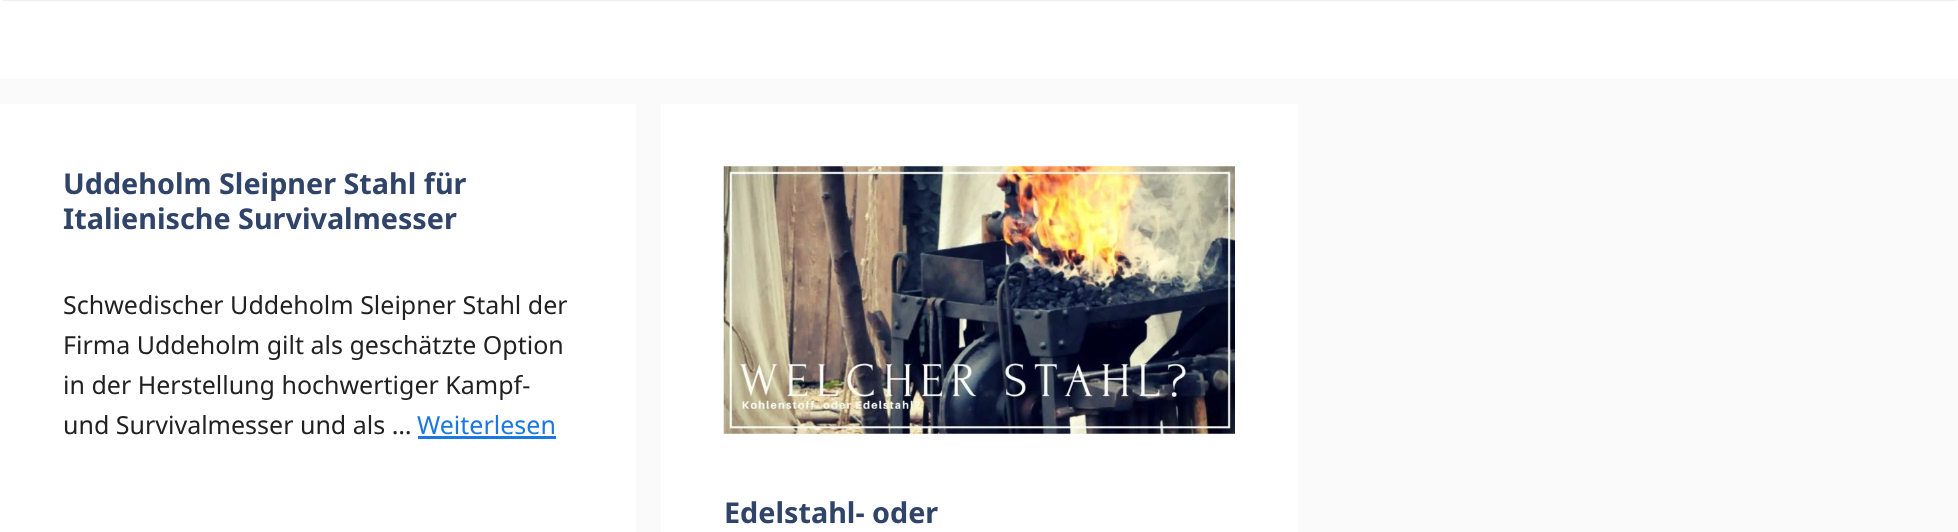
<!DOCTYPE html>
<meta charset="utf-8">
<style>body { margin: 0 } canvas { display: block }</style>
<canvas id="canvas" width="1958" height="532"></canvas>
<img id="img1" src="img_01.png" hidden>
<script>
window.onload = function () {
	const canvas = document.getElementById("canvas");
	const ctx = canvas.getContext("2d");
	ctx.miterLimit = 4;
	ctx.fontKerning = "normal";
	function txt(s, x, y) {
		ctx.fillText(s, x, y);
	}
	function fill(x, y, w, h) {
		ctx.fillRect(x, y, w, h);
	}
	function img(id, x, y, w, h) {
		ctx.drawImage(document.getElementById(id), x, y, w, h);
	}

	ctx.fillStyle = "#FAFAFA";
	fill(0, 0, 1958, 532);
	ctx.fillStyle = "#FFFFFF";
	fill(0, 0, 1958, 79);
	ctx.fillStyle = "rgba(0, 0, 0, 0.2)";
	ctx.filter = "blur(1px)";
	ctx.beginPath();
	ctx.rect(3, -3, 1953, 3);
	ctx.fill();
	ctx.filter = "none";
	ctx.fillStyle = "#FFFFFF";
	fill(0, 104, 636, 428);
	ctx.fillStyle = "#1B78E2";
	fill(418, 436, 138, 3);
	ctx.fillStyle = "#FFFFFF";
	fill(661, 104, 637, 428);
	img("img1", 723, 166, 512, 268);
	ctx.font = "bold 28.75px Noto Sans";
	ctx.fillStyle = "#2F4468";
	txt("Uddeholm Sleipner Stahl für", 63, 194);
	txt("Italienische Survivalmesser", 63, 229);
	ctx.font = "25px Noto Sans";
	ctx.fillStyle = "#212121";
	txt("Schwedischer Uddeholm Sleipner Stahl der", 63, 314);
	txt("Firma Uddeholm gilt als geschätzte Option", 63, 354);
	txt("in der Herstellung hochwertiger Kampf-", 63, 394);
	txt("und Survivalmesser und als …", 63, 434);
	ctx.fillStyle = "#1B78E2";
	txt("Weiterlesen", 417, 434);
	ctx.font = "bold 28.75px Noto Sans";
	ctx.fillStyle = "#2F4468";
	txt("Edelstahl- oder", 724, 523);
};
</script>
